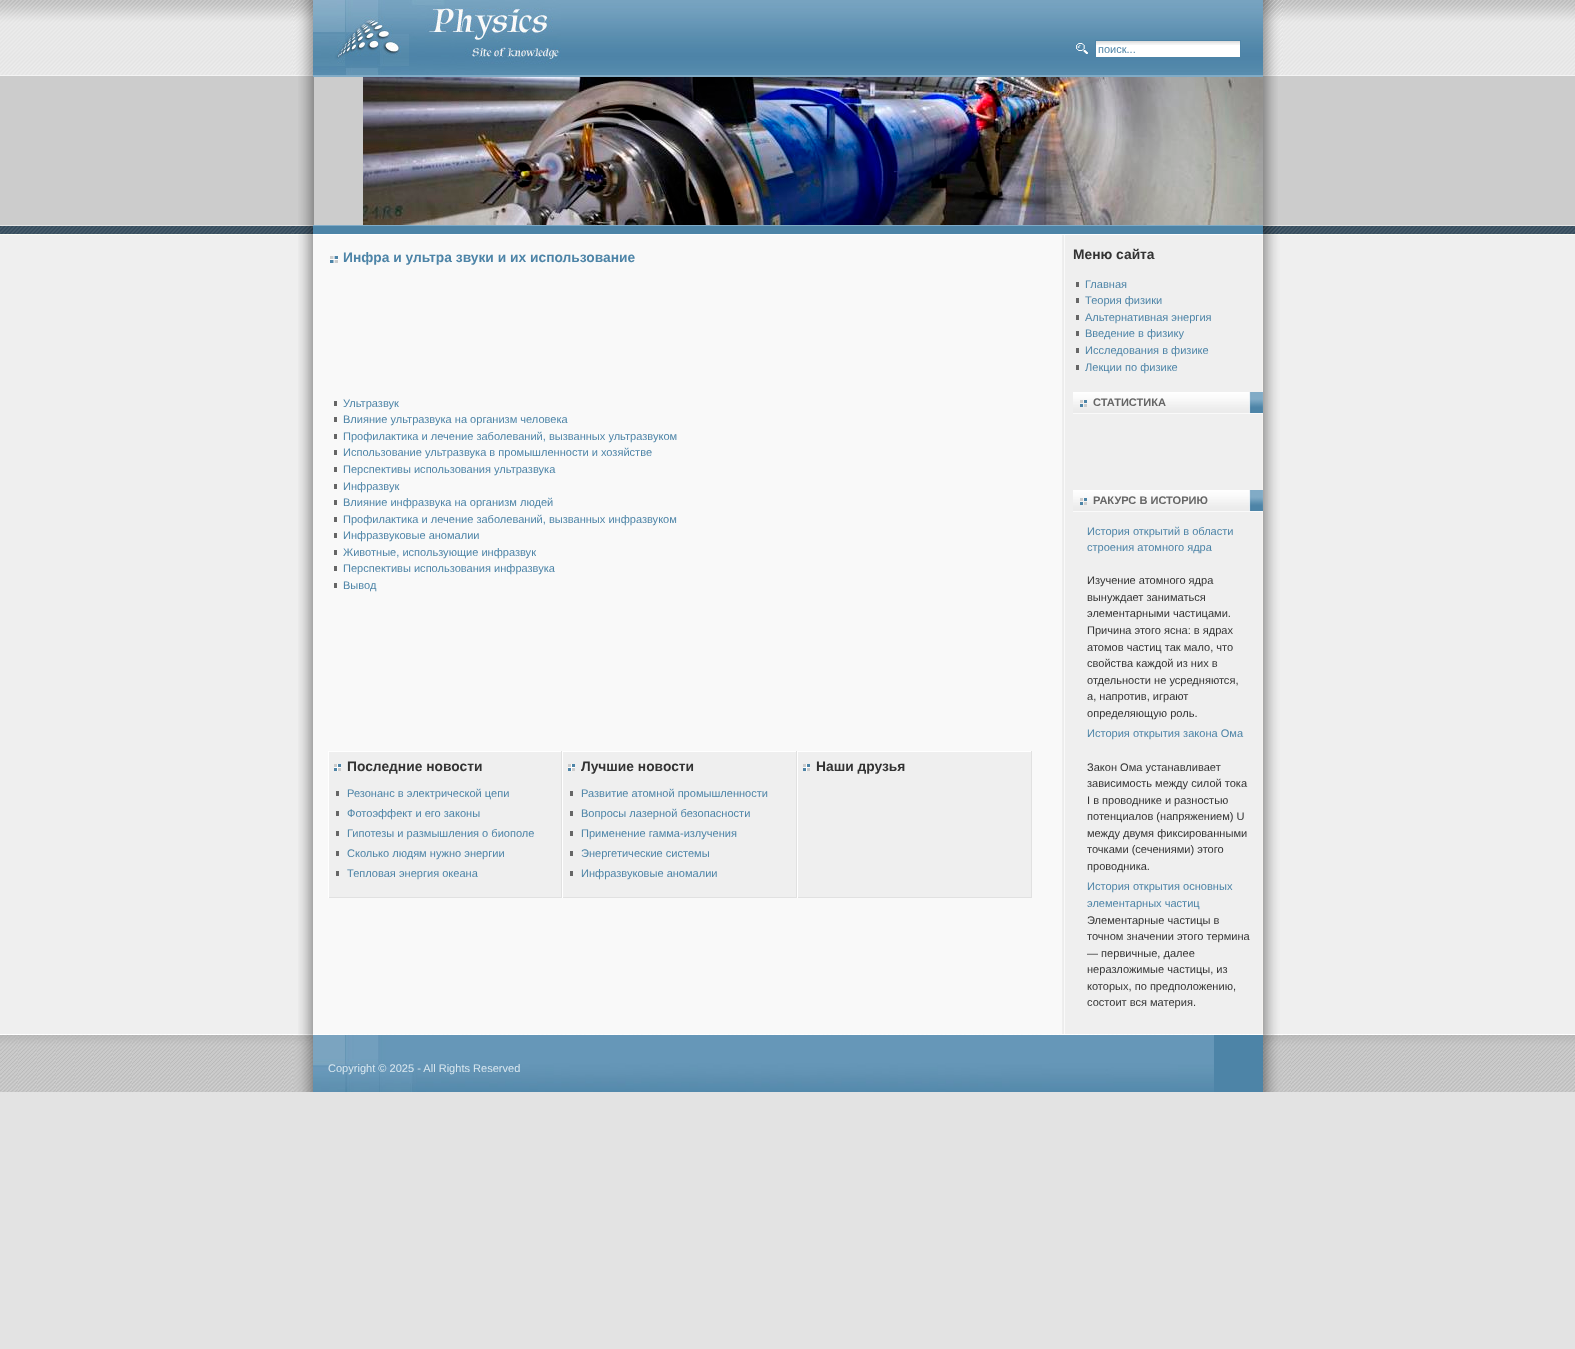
<!DOCTYPE html>
<meta charset="utf-8">
<style>body { margin: 0 } canvas { display: block }</style>
<canvas id="canvas" width="1575" height="1349"></canvas>
<img id="img1" src="img_01.png" hidden>
<img id="img2" src="img_02.png" hidden>
<img id="img3" src="img_03.png" hidden>
<img id="img4" src="img_04.png" hidden>
<img id="img5" src="img_05.png" hidden>
<img id="img6" src="img_06.png" hidden>
<img id="img7" src="img_07.png" hidden>
<img id="img8" src="img_08.png" hidden>
<img id="img9" src="img_09.png" hidden>
<img id="img10" src="img_10.png" hidden>
<img id="img11" src="img_11.png" hidden>
<img id="img12" src="img_12.png" hidden>
<img id="img13" src="img_13.png" hidden>
<img id="img14" src="img_14.png" hidden>
<img id="img15" src="img_15.png" hidden>
<img id="img16" src="img_16.png" hidden>
<img id="img17" src="img_17.png" hidden>
<img id="img18" src="img_18.png" hidden>
<img id="img19" src="img_19.png" hidden>
<img id="img20" src="img_20.png" hidden>
<img id="img21" src="img_21.png" hidden>
<img id="img22" src="img_22.png" hidden>
<img id="img23" src="img_23.png" hidden>
<script>
window.onload = function () {
	const canvas = document.getElementById("canvas");
	const ctx = canvas.getContext("2d");
	ctx.miterLimit = 4;
	ctx.fontKerning = "normal";
	function txt(s, x, y) {
		ctx.fillText(s, x, y);
	}
	function fill(x, y, w, h) {
		ctx.fillRect(x, y, w, h);
	}
	function img(id, x, y, w, h) {
		ctx.drawImage(document.getElementById(id), x, y, w, h);
	}

	ctx.fillStyle = "#E3E3E3";
	fill(0, 0, 1575, 1349);
	img("img1", 0, 0, 1575, 75);
	img("img2", 293, 0, 20, 75);
	img("img3", 1263, 0, 20, 75);
	img("img4", 561, 0, 702, 75);
	img("img5", 313, 0, 248, 75);
	img("img6", 1076, 43, 12, 11);
	ctx.fillStyle = "#FFFFFF";
	fill(1096, 45, 144, 12);
	img("img7", 1096, 41, 144, 4);
	ctx.strokeStyle = "#4D84A7";
	ctx.strokeRect(1095.5, 40.5, 145, 17);
	ctx.fillStyle = "#CCCCCC";
	fill(0, 76, 1575, 149);
	ctx.fillStyle = "#F4F4F4";
	fill(0, 75, 1575, 1);
	img("img8", 298, 75, 16, 150);
	img("img9", 1263, 75, 15, 150);
	img("img10", 363, 77, 900, 148);
	ctx.fillStyle = "#81ABC6";
	fill(313, 75, 950, 2);
	img("img11", 0, 225, 1575, 9);
	img("img12", 293, 225, 20, 9);
	img("img13", 1263, 225, 20, 9);
	ctx.fillStyle = "#4D84A7";
	fill(313, 226, 950, 8);
	ctx.fillStyle = "#81ABC6";
	fill(313, 225, 950, 1);
	ctx.fillStyle = "#EFEFEF";
	fill(0, 235, 1575, 799);
	ctx.fillStyle = "#FAFCF4";
	fill(0, 234, 1575, 1);
	img("img14", 298, 234, 15, 800);
	img("img15", 1263, 234, 20, 800);
	img("img16", 313, 235, 950, 799);
	ctx.fillStyle = "#FFFFFF";
	fill(313, 234, 950, 1);
	img("img17", 330, 256, 8, 7);
	ctx.fillStyle = "#666666";
	fill(334, 401, 3, 5);
	fill(334, 417, 3, 5);
	fill(334, 434, 3, 5);
	fill(334, 450, 3, 5);
	fill(334, 467, 3, 5);
	fill(334, 484, 3, 5);
	fill(334, 500, 3, 5);
	fill(334, 517, 3, 5);
	fill(334, 533, 3, 5);
	fill(334, 550, 3, 5);
	fill(334, 566, 3, 5);
	fill(334, 583, 3, 5);
	ctx.fillStyle = "#EFEFEF";
	fill(329, 752, 232, 145);
	ctx.fillStyle = "#FFFFFF";
	fill(328, 751, 704, 1);
	ctx.fillStyle = "#E1E1E1";
	fill(561, 751, 1, 147);
	fill(328, 897, 234, 1);
	ctx.fillStyle = "#FFFFFF";
	fill(328, 751, 1, 147);
	img("img18", 334, 764, 7, 7);
	ctx.fillStyle = "#666666";
	fill(336, 791, 3, 5);
	fill(336, 811, 3, 5);
	fill(336, 831, 3, 5);
	fill(336, 851, 3, 5);
	fill(336, 871, 3, 5);
	ctx.fillStyle = "#EFEFEF";
	fill(563, 752, 233, 145);
	ctx.fillStyle = "#E1E1E1";
	fill(796, 751, 1, 147);
	fill(562, 897, 235, 1);
	ctx.fillStyle = "#FFFFFF";
	fill(562, 751, 1, 147);
	img("img18", 568, 764, 7, 7);
	ctx.fillStyle = "#666666";
	fill(570, 791, 3, 5);
	fill(570, 811, 3, 5);
	fill(570, 831, 3, 5);
	fill(570, 851, 3, 5);
	fill(570, 871, 3, 5);
	ctx.fillStyle = "#EFEFEF";
	fill(798, 752, 233, 145);
	ctx.fillStyle = "#E1E1E1";
	fill(1031, 751, 1, 147);
	fill(797, 897, 235, 1);
	ctx.fillStyle = "#FFFFFF";
	fill(797, 751, 1, 147);
	img("img18", 803, 764, 7, 7);
	ctx.fillStyle = "#666666";
	fill(1076, 282, 3, 5);
	fill(1076, 298, 3, 5);
	fill(1076, 315, 3, 5);
	fill(1076, 331, 3, 5);
	fill(1076, 348, 3, 5);
	fill(1076, 365, 3, 5);
	img("img19", 1073, 392, 190, 22);
	img("img19", 1073, 490, 190, 22);
	img("img20", 0, 1034, 1575, 58);
	img("img21", 293, 1034, 20, 58);
	img("img22", 1263, 1034, 20, 58);
	ctx.fillStyle = "#4D84A7";
	fill(1214, 1035, 49, 57);
	img("img23", 313, 1035, 901, 57);
	ctx.font = "11px Liberation Sans";
	txt("поиск...", 1098, 53);
	ctx.font = "bold 13.8px Liberation Sans";
	txt("Инфра и ультра звуки и их использование", 343, 262);
	ctx.font = "11.05px Liberation Sans";
	txt("Ультразвук", 343, 407);
	txt("Влияние ультразвука на организм человека", 343, 423);
	txt("Профилактика и лечение заболеваний, вызванных ультразвуком", 343, 440);
	txt("Использование ультразвука в промышленности и хозяйстве", 343, 456);
	txt("Перспективы использования ультразвука", 343, 473);
	txt("Инфразвук", 343, 490);
	txt("Влияние инфразвука на организм людей", 343, 506);
	txt("Профилактика и лечение заболеваний, вызванных инфразвуком", 343, 523);
	txt("Инфразвуковые аномалии", 343, 539);
	txt("Животные, использующие инфразвук", 343, 556);
	txt("Перспективы использования инфразвука", 343, 572);
	txt("Вывод", 343, 589);
	ctx.font = "bold 13.8px Liberation Sans";
	ctx.fillStyle = "#333333";
	txt("Последние новости", 347, 771);
	ctx.font = "11.05px Liberation Sans";
	ctx.fillStyle = "#4D84A7";
	txt("Резонанс в электрической цепи", 347, 797);
	txt("Фотоэффект и его законы", 347, 817);
	txt("Гипотезы и размышления о биополе", 347, 837);
	txt("Сколько людям нужно энергии", 347, 857);
	txt("Тепловая энергия океана", 347, 877);
	ctx.font = "bold 13.8px Liberation Sans";
	ctx.fillStyle = "#333333";
	txt("Лучшие новости", 581, 771);
	ctx.font = "11.05px Liberation Sans";
	ctx.fillStyle = "#4D84A7";
	txt("Развитие атомной промышленности", 581, 797);
	txt("Вопросы лазерной безопасности", 581, 817);
	txt("Применение гамма-излучения", 581, 837);
	txt("Энергетические системы", 581, 857);
	txt("Инфразвуковые аномалии", 581, 877);
	ctx.font = "bold 13.8px Liberation Sans";
	ctx.fillStyle = "#333333";
	txt("Наши друзья", 816, 771);
	txt("Меню сайта", 1073, 259);
	ctx.font = "11.05px Liberation Sans";
	ctx.fillStyle = "#4D84A7";
	txt("Главная", 1085, 288);
	txt("Теория физики", 1085, 304);
	txt("Альтернативная энергия", 1085, 321);
	txt("Введение в физику", 1085, 337);
	txt("Исследования в физике", 1085, 354);
	txt("Лекции по физике", 1085, 371);
	ctx.font = "bold 11.05px Liberation Sans";
	ctx.fillStyle = "#666666";
	txt("СТАТИСТИКА", 1093, 406);
	txt("РАКУРС В ИСТОРИЮ", 1093, 504);
	ctx.font = "11.05px Liberation Sans";
	ctx.fillStyle = "#4D84A7";
	txt("История открытий в области", 1087, 535);
	txt("строения атомного ядра", 1087, 551);
	ctx.fillStyle = "#333333";
	txt("Изучение атомного ядра", 1087, 584);
	txt("вынуждает заниматься", 1087, 601);
	txt("элементарными частицами.", 1087, 617);
	txt("Причина этого ясна: в ядрах", 1087, 634);
	txt("атомов частиц так мало, что", 1087, 651);
	txt("свойства каждой из них в", 1087, 667);
	txt("отдельности не усредняются,", 1087, 684);
	txt("а, напротив, играют", 1087, 700);
	txt("определяющую роль.", 1087, 717);
	ctx.fillStyle = "#4D84A7";
	txt("История открытия закона Ома", 1087, 737);
	ctx.fillStyle = "#333333";
	txt("Закон Ома устанавливает", 1087, 771);
	txt("зависимость между силой тока", 1087, 787);
	txt("I в проводнике и разностью", 1087, 804);
	txt("потенциалов (напряжением) U", 1087, 820);
	txt("между двумя фиксированными", 1087, 837);
	txt("точками (сечениями) этого", 1087, 853);
	txt("проводника.", 1087, 870);
	ctx.fillStyle = "#4D84A7";
	txt("История открытия основных", 1087, 890);
	txt("элементарных частиц", 1087, 907);
	ctx.fillStyle = "#333333";
	txt("Элементарные частицы в", 1087, 924);
	txt("точном значении этого термина", 1087, 940);
	txt("— первичные, далее", 1087, 957);
	txt("неразложимые частицы, из", 1087, 973);
	txt("которых, по предположению,", 1087, 990);
	txt("состоит вся материя.", 1087, 1006);
	ctx.fillStyle = "#D9E7EF";
	txt("Copyright © 2025 - All Rights Reserved", 328, 1072);
};
</script>
